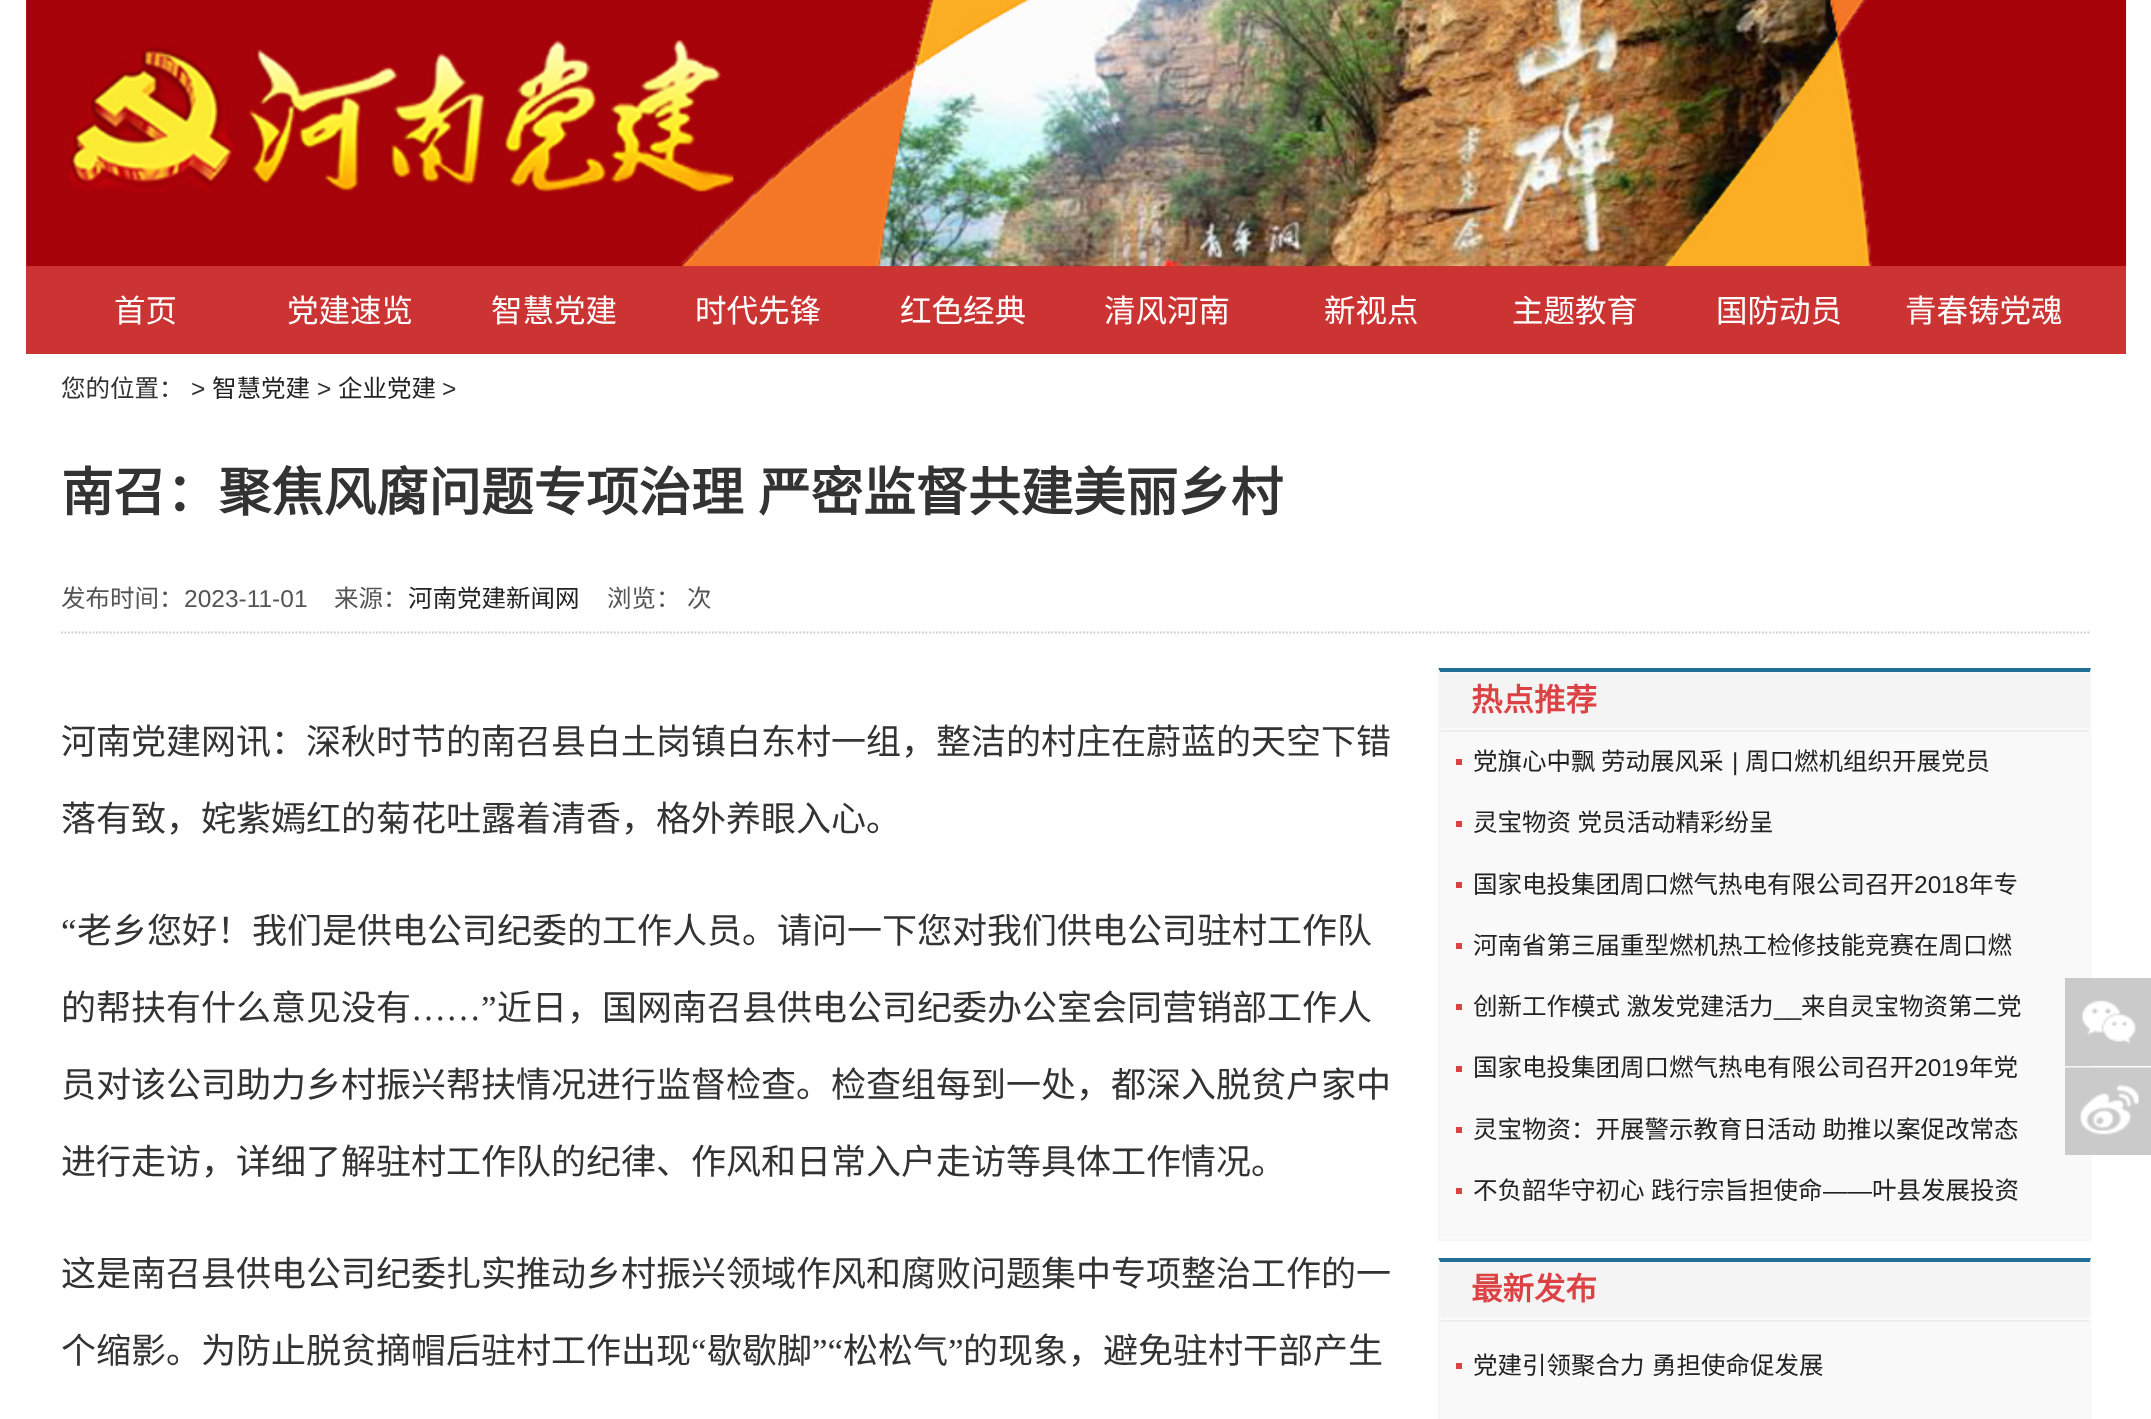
<!DOCTYPE html>
<meta charset="utf-8">
<style>body { margin: 0 } canvas { display: block }</style>
<canvas id="canvas" width="2151" height="1419"></canvas>
<img id="img1" src="img_01.png" hidden>
<img id="img2" src="img_02.png" hidden>
<img id="img3" src="img_03.png" hidden>
<img id="img4" src="img_04.png" hidden>
<img id="img5" src="img_05.png" hidden>
<img id="img6" src="img_06.png" hidden>
<script>
window.onload = function () {
	const canvas = document.getElementById("canvas");
	const ctx = canvas.getContext("2d");
	ctx.miterLimit = 4;
	ctx.fontKerning = "normal";
	function txt(s, x, y) {
		ctx.fillText(s, x, y);
	}
	function fill(x, y, w, h) {
		ctx.fillRect(x, y, w, h);
	}
	function img(id, x, y, w, h) {
		ctx.drawImage(document.getElementById(id), x, y, w, h);
	}

	ctx.fillStyle = "#FFFFFF";
	fill(0, 0, 2151, 1419);
	ctx.fillStyle = "#CC3333";
	fill(26, 0, 1, 266);
	fill(26, 266, 2100, 88);
	img("img1", 26, 0, 2101, 267);
	img("img2", 70, 40, 664, 153);
	ctx.beginPath();
	ctx.moveTo(61, 632.5);
	ctx.lineTo(2091, 632.5);
	ctx.strokeStyle = "#CCCCCC";
	ctx.lineWidth = 1.8;
	ctx.setLineDash([1.75, 1.75]);
	ctx.stroke();
	ctx.fillStyle = "#206F96";
	ctx.beginPath();
	ctx.moveTo(1438, 668);
	ctx.lineTo(2091, 668);
	ctx.lineTo(2090, 672);
	ctx.lineTo(1440, 672);
	ctx.closePath();
	ctx.fill();
	ctx.fillStyle = "#F5F5F5";
	ctx.beginPath();
	ctx.moveTo(2091, 668);
	ctx.lineTo(2091, 1241);
	ctx.lineTo(2090, 1239);
	ctx.lineTo(2090, 672);
	ctx.closePath();
	ctx.fill();
	fill(1439, 1239, 652, 2);
	ctx.beginPath();
	ctx.moveTo(1438, 1241);
	ctx.lineTo(1438, 668);
	ctx.lineTo(1440, 672);
	ctx.lineTo(1440, 1239);
	ctx.closePath();
	ctx.fill();
	ctx.fillStyle = "#F9F9F9";
	fill(1440, 672, 650, 567);
	img("img3", 1440, 673, 650, 59);
	ctx.fillStyle = "#DC4143";
	fill(1456, 759, 6, 6);
	fill(1456, 821, 6, 6);
	fill(1456, 882, 6, 6);
	fill(1456, 943, 6, 6);
	fill(1456, 1004, 6, 6);
	fill(1456, 1066, 6, 6);
	fill(1456, 1127, 6, 6);
	fill(1456, 1188, 6, 6);
	ctx.fillStyle = "#206F96";
	ctx.beginPath();
	ctx.moveTo(1438, 1258);
	ctx.lineTo(2091, 1258);
	ctx.lineTo(2090, 1262);
	ctx.lineTo(1440, 1262);
	ctx.closePath();
	ctx.fill();
	ctx.fillStyle = "#F5F5F5";
	ctx.beginPath();
	ctx.moveTo(2091, 1258);
	ctx.lineTo(2091, 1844);
	ctx.lineTo(2090, 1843);
	ctx.lineTo(2090, 1262);
	ctx.closePath();
	ctx.fill();
	ctx.beginPath();
	ctx.moveTo(1438, 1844);
	ctx.lineTo(1438, 1258);
	ctx.lineTo(1440, 1262);
	ctx.lineTo(1440, 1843);
	ctx.closePath();
	ctx.fill();
	ctx.fillStyle = "#F9F9F9";
	fill(1440, 1262, 650, 157);
	img("img4", 1440, 1262, 650, 60);
	ctx.fillStyle = "#DC4143";
	fill(1456, 1363, 6, 6);
	ctx.fillStyle = "#CACACA";
	fill(2065, 978, 86, 88);
	img("img5", 2082, 1000, 54, 44);
	fill(2065, 1135, 86, 20);
	img("img6", 2065, 1067, 86, 68);
	ctx.font = "31.5px Noto Sans CJK SC";
	ctx.fillStyle = "#FFFFFF";
	txt("首页", 114, 322);
	txt("党建速览", 287, 322);
	txt("智慧党建", 491, 322);
	txt("时代先锋", 695, 322);
	txt("红色经典", 900, 322);
	txt("清风河南", 1104, 322);
	txt("新视点", 1324, 322);
	txt("主题教育", 1512, 322);
	txt("国防动员", 1716, 322);
	txt("青春铸党魂", 1905, 322);
	ctx.font = "24.5px Noto Sans CJK SC";
	ctx.fillStyle = "#333333";
	txt("您的位置：", 61, 397);
	ctx.font = "24.5px Liberation Sans";
	txt(">", 191, 397);
	ctx.font = "24.5px Noto Sans CJK SC";
	ctx.fillStyle = "#222222";
	txt("智慧党建", 212, 397);
	ctx.font = "24.5px Liberation Sans";
	ctx.fillStyle = "#333333";
	txt(">", 317, 397);
	ctx.font = "24.5px Noto Sans CJK SC";
	ctx.fillStyle = "#222222";
	txt("企业党建", 338, 397);
	ctx.font = "24.5px Liberation Sans";
	ctx.fillStyle = "#333333";
	txt(">", 442, 397);
	ctx.font = "bold 52.5px Noto Sans CJK SC";
	txt("南召：聚焦风腐问题专项治理", 61, 511);
	txt("严密监督共建美丽乡村", 758, 511);
	ctx.font = "24.5px Noto Sans CJK SC";
	ctx.fillStyle = "#555555";
	txt("发布时间：", 61, 607);
	ctx.font = "24.5px Liberation Sans";
	txt("2023-11-01", 184, 607);
	ctx.font = "24.5px Noto Sans CJK SC";
	txt("来源：", 334, 607);
	ctx.fillStyle = "#222222";
	txt("河南党建新闻网", 408, 607);
	ctx.fillStyle = "#555555";
	txt("浏览：", 607, 607);
	txt("次", 687, 607);
	ctx.font = "35px Noto Sans CJK SC";
	ctx.fillStyle = "#333333";
	txt("河南党建网讯：深秋时节的南召县白土岗镇白东村一组，整洁的村庄在蔚蓝的天空下错", 61, 754);
	txt("落有致，姹紫嫣红的菊花吐露着清香，格外养眼入心。", 61, 831);
	ctx.font = "35px Liberation Serif";
	txt("“", 61, 943);
	ctx.font = "35px Noto Sans CJK SC";
	txt("老乡您好！我们是供电公司纪委的工作人员。请问一下您对我们供电公司驻村工作队", 77, 943);
	txt("的帮扶有什么意见没有", 61, 1020);
	ctx.font = "35px Liberation Serif";
	txt("……”", 411, 1020);
	ctx.font = "35px Noto Sans CJK SC";
	txt("近日，国网南召县供电公司纪委办公室会同营销部工作人", 497, 1020);
	txt("员对该公司助力乡村振兴帮扶情况进行监督检查。检查组每到一处，都深入脱贫户家中", 61, 1097);
	txt("进行走访，详细了解驻村工作队的纪律、作风和日常入户走访等具体工作情况。", 61, 1174);
	txt("这是南召县供电公司纪委扎实推动乡村振兴领域作风和腐败问题集中专项整治工作的一", 61, 1286);
	txt("个缩影。为防止脱贫摘帽后驻村工作出现", 61, 1363);
	ctx.font = "35px Liberation Serif";
	txt("“", 691, 1363);
	ctx.font = "35px Noto Sans CJK SC";
	txt("歇歇脚", 707, 1363);
	ctx.font = "35px Liberation Serif";
	txt("”“", 812, 1363);
	ctx.font = "35px Noto Sans CJK SC";
	txt("松松气", 843, 1363);
	ctx.font = "35px Liberation Serif";
	txt("”", 948, 1363);
	ctx.font = "35px Noto Sans CJK SC";
	txt("的现象，避免驻村干部产生", 963, 1363);
	ctx.font = "bold 31.5px Noto Sans CJK SC";
	ctx.fillStyle = "#DC4143";
	txt("热点推荐", 1471, 711);
	ctx.font = "24.5px Noto Sans CJK SC";
	ctx.fillStyle = "#222222";
	txt("党旗心中飘 劳动展风采", 1473, 770);
	ctx.font = "24.5px Liberation Sans";
	txt("|", 1732, 770);
	ctx.font = "24.5px Noto Sans CJK SC";
	txt("周口燃机组织开展党员", 1745, 770);
	ctx.wordSpacing = "1px";
	txt("灵宝物资 党员活动精彩纷呈", 1473, 831);
	ctx.wordSpacing = "0px";
	txt("国家电投集团周口燃气热电有限公司召开", 1473, 893);
	ctx.font = "24.5px Liberation Sans";
	txt("2018", 1914, 893);
	ctx.font = "24.5px Noto Sans CJK SC";
	txt("年专", 1969, 893);
	txt("河南省第三届重型燃机热工检修技能竞赛在周口燃", 1473, 954);
	ctx.wordSpacing = "1px";
	txt("创新工作模式 激发党建活力", 1473, 1015);
	ctx.wordSpacing = "0px";
	txt("来自灵宝物资第二党", 1801, 1015);
	ctx.font = "24.5px Liberation Sans";
	txt("__", 1774, 1015);
	ctx.font = "24.5px Noto Sans CJK SC";
	txt("国家电投集团周口燃气热电有限公司召开", 1473, 1076);
	ctx.font = "24.5px Liberation Sans";
	txt("2019", 1914, 1076);
	ctx.font = "24.5px Noto Sans CJK SC";
	txt("年党", 1969, 1076);
	ctx.wordSpacing = "1px";
	txt("灵宝物资：开展警示教育日活动 助推以案促改常态", 1473, 1138);
	txt("不负韶华守初心 践行宗旨担使命", 1473, 1199);
	ctx.wordSpacing = "0px";
	ctx.font = "24.5px Liberation Sans";
	txt("——", 1823, 1199);
	ctx.font = "24.5px Noto Sans CJK SC";
	txt("叶县发展投资", 1872, 1199);
	ctx.font = "bold 31.5px Noto Sans CJK SC";
	ctx.fillStyle = "#DC4143";
	txt("最新发布", 1471, 1300);
	ctx.font = "24.5px Noto Sans CJK SC";
	ctx.fillStyle = "#222222";
	txt("党建引领聚合力", 1473, 1374);
	txt("勇担使命促发展", 1652, 1374);
};
</script>
